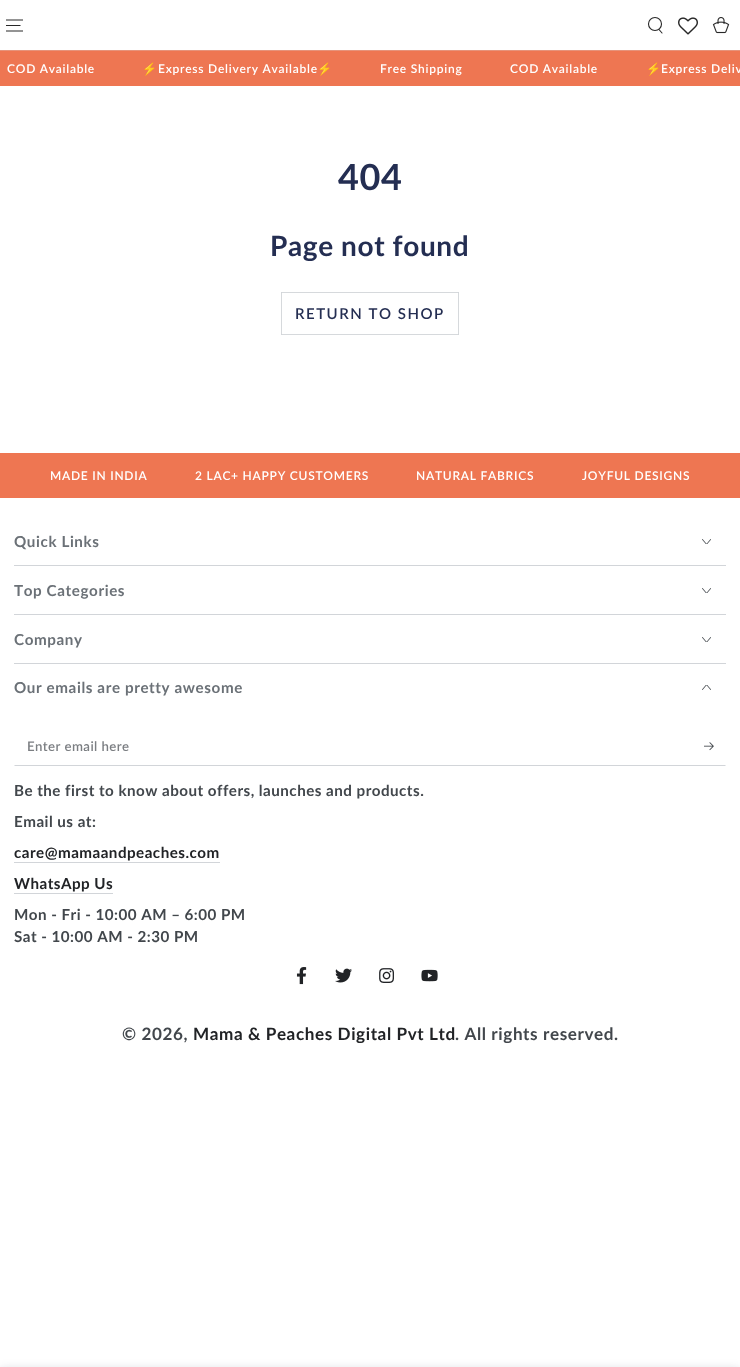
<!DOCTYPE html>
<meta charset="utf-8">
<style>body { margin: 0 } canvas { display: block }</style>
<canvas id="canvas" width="740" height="1367"></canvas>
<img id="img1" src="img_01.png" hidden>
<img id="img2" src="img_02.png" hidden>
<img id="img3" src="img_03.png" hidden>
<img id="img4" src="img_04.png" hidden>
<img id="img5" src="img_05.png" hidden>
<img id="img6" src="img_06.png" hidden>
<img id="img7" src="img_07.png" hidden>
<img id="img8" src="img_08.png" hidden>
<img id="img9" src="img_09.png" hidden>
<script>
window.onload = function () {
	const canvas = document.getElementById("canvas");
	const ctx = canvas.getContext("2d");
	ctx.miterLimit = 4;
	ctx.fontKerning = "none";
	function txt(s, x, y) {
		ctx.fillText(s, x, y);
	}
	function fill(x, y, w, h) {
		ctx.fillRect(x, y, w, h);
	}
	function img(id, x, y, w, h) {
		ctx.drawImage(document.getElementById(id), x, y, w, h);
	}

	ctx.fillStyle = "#FFFFFF";
	fill(0, 0, 740, 1367);
	ctx.fillStyle = "#E6937B";
	fill(0, 50, 740, 1);
	ctx.beginPath();
	ctx.moveTo(6, 31);
	ctx.lineTo(23, 31);
	ctx.moveTo(6, 25.5);
	ctx.lineTo(20.5, 25.5);
	ctx.moveTo(6, 20);
	ctx.lineTo(23, 20);
	ctx.strokeStyle = "#282828";
	ctx.stroke();
	ctx.beginPath();
	ctx.arc(655, 24, 6.5, 0, Math.PI * 2);
	ctx.lineWidth = 1.1;
	ctx.stroke();
	ctx.beginPath();
	ctx.moveTo(659, 29.5);
	ctx.lineTo(662, 33);
	ctx.lineCap = "round";
	ctx.stroke();
	img("img1", 678, 17, 20, 18);
	img("img2", 712, 17, 18, 17);
	ctx.fillStyle = "#EE7652";
	fill(0, 51, 740, 35);
	ctx.strokeStyle = "#D2D5D9";
	ctx.lineWidth = 0.9;
	ctx.strokeRect(281.45, 292.45, 177.1, 42.1);
	fill(0, 453, 740, 45);
	ctx.fillStyle = "#D2D5D9";
	fill(14, 565, 712, 1);
	img("img3", 702, 539, 9, 5);
	fill(14, 614, 712, 1);
	img("img3", 702, 588, 9, 5);
	fill(14, 663, 712, 1);
	img("img3", 702, 637, 9, 5);
	img("img4", 702, 685, 9, 5);
	ctx.beginPath();
	ctx.moveTo(726, 766);
	ctx.lineTo(14, 766);
	ctx.lineTo(15, 765);
	ctx.lineTo(725, 765);
	ctx.closePath();
	ctx.fill();
	img("img5", 704, 742, 10, 9);
	fill(14, 862, 206, 1);
	fill(14, 893, 99, 1);
	img("img6", 296, 967, 11, 18);
	img("img7", 335, 968, 17, 15);
	img("img8", 379, 968, 15, 15);
	img("img9", 421, 969, 17, 13);
	ctx.fillStyle = "rgba(36, 46, 82, 0.15)";
	ctx.filter = "blur(4px)";
	ctx.beginPath();
	ctx.rect(0, 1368, 740, 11);
	ctx.fill();
	ctx.filter = "none";
	ctx.letterSpacing = "0.75px";
	ctx.font = "600 12px Lato";
	ctx.fillStyle = "#FFFFFF";
	txt("COD Available", 7, 73);
	ctx.font = "bold 12px Noto Color Emoji";
	txt("⚡", 142, 73);
	ctx.font = "600 12px Lato";
	txt("Express Delivery Available", 158, 73);
	ctx.font = "bold 12px Noto Color Emoji";
	txt("⚡", 317, 73);
	ctx.font = "600 12px Lato";
	txt("Free Shipping", 380, 73);
	txt("COD Available", 510, 73);
	ctx.font = "bold 12px Noto Color Emoji";
	txt("⚡", 646, 73);
	ctx.font = "600 12px Lato";
	txt("Express Deliv", 661, 73);
	ctx.letterSpacing = "0.6px";
	ctx.font = "bold 36px Lato";
	ctx.fillStyle = "#242E52";
	txt("404", 338, 190);
	ctx.font = "bold 28px Lato";
	txt("Page not found", 270, 256);
	ctx.letterSpacing = "1.5px";
	ctx.font = "600 15px Lato";
	txt("RETURN TO SHOP", 295, 319);
	ctx.letterSpacing = "0.75px";
	ctx.font = "600 12px Lato";
	ctx.fillStyle = "#FFFFFF";
	txt("MADE IN INDIA", 50, 480);
	txt("2 LAC+ HAPPY CUSTOMERS", 195, 480);
	txt("NATURAL FABRICS", 416, 480);
	txt("JOYFUL DESIGNS", 582, 480);
	ctx.letterSpacing = "0.6px";
	ctx.font = "bold 15.2px Lato";
	ctx.fillStyle = "#6B7177";
	txt("Quick Links", 14, 547);
	txt("Top Categories", 14, 596);
	txt("Company", 14, 645);
	txt("Our emails are pretty awesome", 14, 693);
	ctx.letterSpacing = "0.4px";
	ctx.font = "600 13.25px Lato";
	ctx.fillStyle = "#7B7E82";
	txt("Enter email here", 27, 751);
	ctx.letterSpacing = "0.47px";
	ctx.font = "bold 15.2px Lato";
	ctx.fillStyle = "#42474C";
	txt("Be the first to know about offers, launches and products.", 14, 796);
	txt("Email us at:", 14, 827);
	ctx.fillStyle = "#212326";
	txt("care@mamaandpeaches.com", 14, 858);
	txt("WhatsApp Us", 14, 889);
	ctx.fillStyle = "#42474C";
	txt("Mon - Fri - 10:00 AM – 6:00 PM", 14, 920);
	txt("Sat - 10:00 AM - 2:30 PM", 14, 942);
	ctx.letterSpacing = "0.6px";
	ctx.font = "bold 17.1px Lato";
	txt("© 2026,", 122, 1040);
	ctx.fillStyle = "#212326";
	txt("Mama & Peaches Digital Pvt Ltd", 193, 1040);
	ctx.fillStyle = "#42474C";
	txt(". All rights reserved.", 455, 1040);
};
</script>
